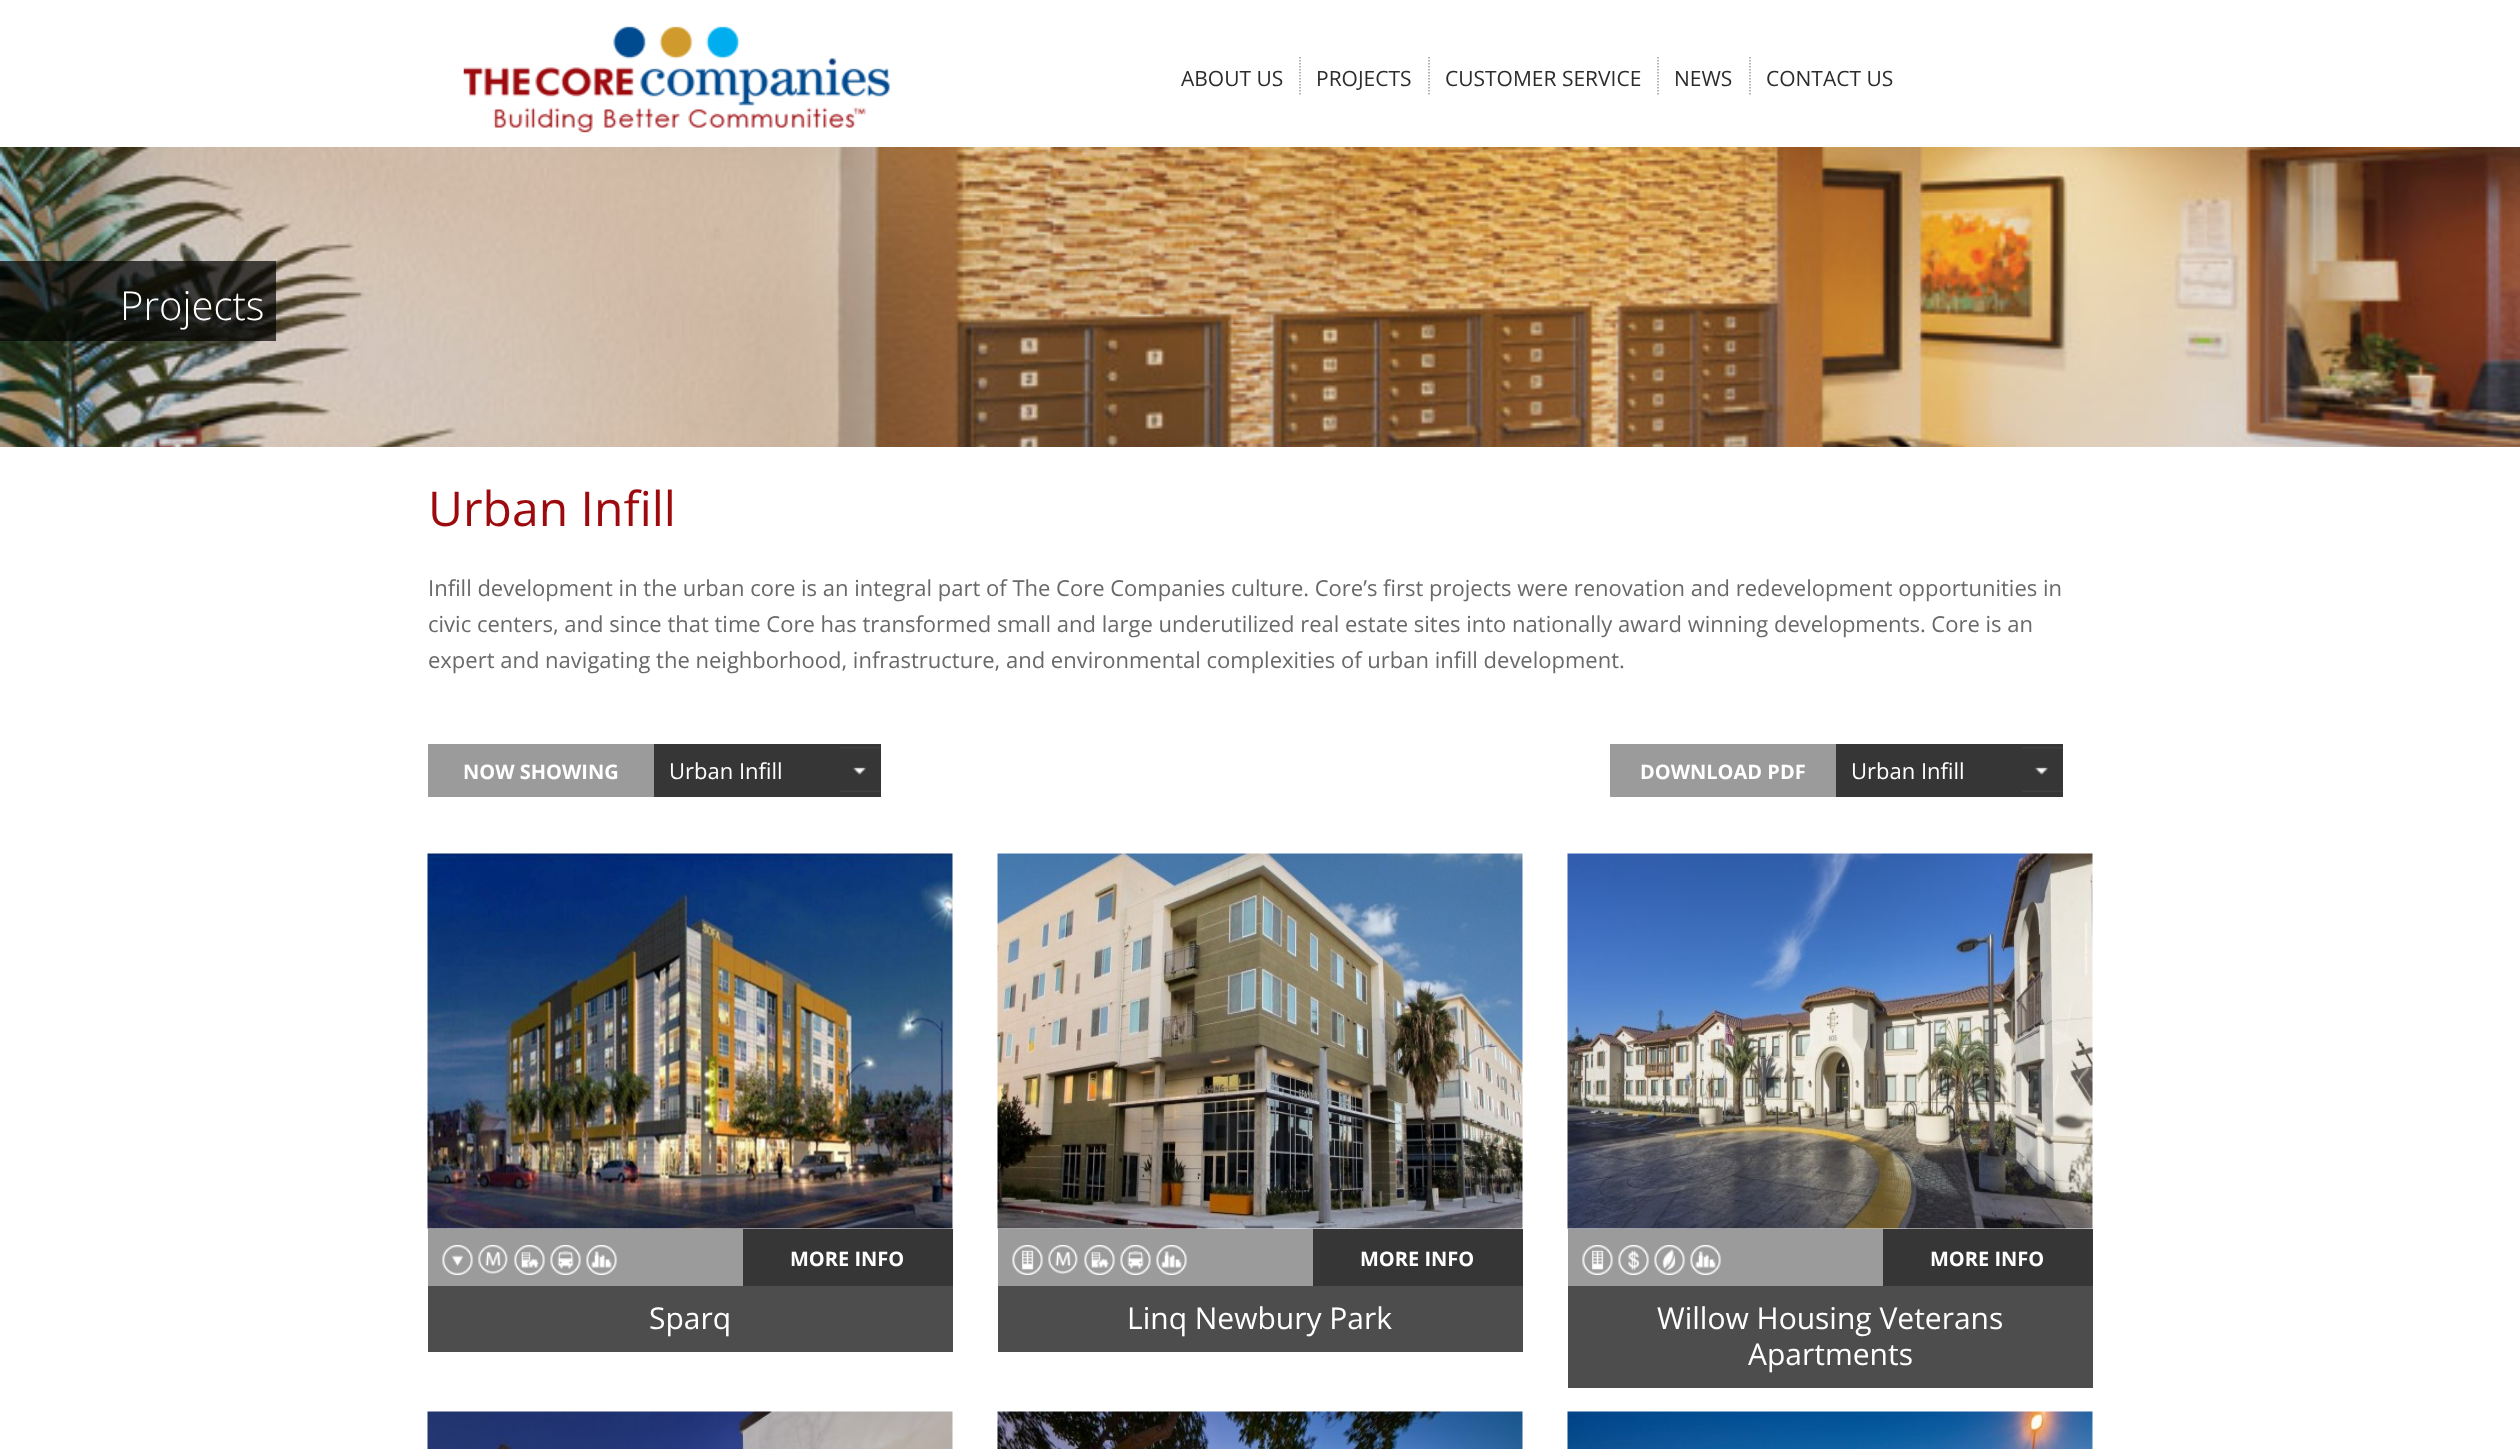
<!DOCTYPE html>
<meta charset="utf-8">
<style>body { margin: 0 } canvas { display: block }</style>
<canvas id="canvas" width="2520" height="1449"></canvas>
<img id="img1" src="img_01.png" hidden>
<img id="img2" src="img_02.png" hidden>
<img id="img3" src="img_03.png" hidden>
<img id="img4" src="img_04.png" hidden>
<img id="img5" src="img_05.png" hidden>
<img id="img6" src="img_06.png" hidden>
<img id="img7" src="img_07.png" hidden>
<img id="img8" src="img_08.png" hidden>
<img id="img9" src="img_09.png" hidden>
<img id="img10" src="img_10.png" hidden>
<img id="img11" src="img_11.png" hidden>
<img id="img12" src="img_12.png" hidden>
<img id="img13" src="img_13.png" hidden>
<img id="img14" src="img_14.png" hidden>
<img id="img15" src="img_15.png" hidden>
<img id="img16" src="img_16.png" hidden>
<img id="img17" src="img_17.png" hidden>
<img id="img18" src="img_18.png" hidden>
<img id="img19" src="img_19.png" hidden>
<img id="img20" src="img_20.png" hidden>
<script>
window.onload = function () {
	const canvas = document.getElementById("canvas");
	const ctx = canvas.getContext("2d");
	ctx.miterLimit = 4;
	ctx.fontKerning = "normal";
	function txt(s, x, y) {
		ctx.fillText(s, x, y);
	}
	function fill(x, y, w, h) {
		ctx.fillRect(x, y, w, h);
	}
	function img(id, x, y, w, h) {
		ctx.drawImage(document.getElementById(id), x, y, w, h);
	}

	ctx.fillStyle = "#FFFFFF";
	fill(0, 0, 2520, 1449);
	img("img1", 463, 26, 427, 107);
	ctx.beginPath();
	ctx.moveTo(1300, 57);
	ctx.lineTo(1300, 94.5);
	ctx.strokeStyle = "#9C9C9C";
	ctx.lineWidth = 1.5;
	ctx.setLineDash([1.5, 1.5]);
	ctx.stroke();
	ctx.beginPath();
	ctx.moveTo(1429, 57);
	ctx.lineTo(1429, 94.5);
	ctx.stroke();
	ctx.beginPath();
	ctx.moveTo(1658, 57);
	ctx.lineTo(1658, 94.5);
	ctx.stroke();
	ctx.beginPath();
	ctx.moveTo(1750, 57);
	ctx.lineTo(1750, 94.5);
	ctx.stroke();
	img("img2", 0, 147, 2520, 300);
	ctx.fillStyle = "rgba(0, 0, 0, 0.7)";
	fill(0, 261, 276, 80);
	ctx.fillStyle = "#9B9B9B";
	fill(428, 744, 226, 53);
	ctx.fillStyle = "#363636";
	fill(654, 744, 227, 53);
	img("img3", 840, 747, 41, 45);
	ctx.fillStyle = "#9B9B9B";
	fill(1610, 744, 226, 53);
	ctx.fillStyle = "#363636";
	fill(1836, 744, 227, 53);
	img("img3", 2022, 747, 41, 45);
	img("img4", 427, 853, 526, 376);
	ctx.fillStyle = "#9B9B9B";
	fill(428, 1229, 315, 57);
	img("img5", 442, 1245, 31, 30);
	img("img6", 478, 1245, 30, 29);
	img("img7", 514, 1245, 31, 30);
	img("img8", 550, 1245, 31, 30);
	img("img9", 586, 1245, 31, 30);
	ctx.fillStyle = "#363636";
	fill(743, 1229, 210, 57);
	ctx.fillStyle = "#4D4D4D";
	fill(428, 1286, 525, 66);
	img("img10", 997, 853, 526, 376);
	ctx.fillStyle = "#9B9B9B";
	fill(998, 1229, 315, 57);
	img("img11", 1012, 1245, 31, 30);
	img("img12", 1048, 1245, 30, 29);
	img("img13", 1084, 1245, 31, 30);
	img("img8", 1120, 1245, 31, 30);
	img("img9", 1156, 1245, 31, 30);
	ctx.fillStyle = "#363636";
	fill(1313, 1229, 210, 57);
	ctx.fillStyle = "#4D4D4D";
	fill(998, 1286, 525, 66);
	img("img14", 1567, 853, 526, 376);
	ctx.fillStyle = "#9B9B9B";
	fill(1568, 1229, 315, 57);
	img("img11", 1582, 1245, 31, 30);
	img("img15", 1618, 1245, 31, 30);
	img("img16", 1654, 1245, 31, 30);
	img("img17", 1690, 1245, 31, 30);
	ctx.fillStyle = "#363636";
	fill(1883, 1229, 210, 57);
	ctx.fillStyle = "#4D4D4D";
	fill(1568, 1286, 525, 102);
	img("img18", 427, 1411, 526, 38);
	img("img19", 997, 1411, 526, 38);
	img("img20", 1567, 1411, 526, 38);
	ctx.font = "21px Open Sans";
	ctx.fillStyle = "#2C2C2C";
	txt("ABOUT US", 1181, 86);
	txt("PROJECTS", 1316, 86);
	txt("CUSTOMER SERVICE", 1445, 86);
	txt("NEWS", 1674, 86);
	txt("CONTACT US", 1766, 86);
	ctx.font = "300 40px Open Sans";
	ctx.fillStyle = "#FFFFFF";
	txt("Projects", 120, 320);
	ctx.font = "48px Open Sans";
	ctx.fillStyle = "#9D0A0E";
	txt("Urban Infill", 428, 526);
	ctx.font = "22px Open Sans";
	ctx.fillStyle = "#696969";
	txt("Infill development in the urban core is an integral part of The Core Companies culture. Core’s first projects were renovation and redevelopment opportunities in", 428, 596);
	txt("civic centers, and since that time Core has transformed small and large underutilized real estate sites into nationally award winning developments. Core is an", 428, 632);
	txt("expert and navigating the neighborhood, infrastructure, and environmental complexities of urban infill development.", 428, 668);
	ctx.font = "bold 20px Open Sans";
	ctx.fillStyle = "#FFFFFF";
	txt("NOW SHOWING", 463, 779);
	ctx.font = "22px Open Sans";
	txt("Urban Infill", 669, 779);
	ctx.font = "bold 20px Open Sans";
	txt("DOWNLOAD PDF", 1640, 779);
	ctx.font = "22px Open Sans";
	txt("Urban Infill", 1851, 779);
	ctx.font = "bold 20px Open Sans";
	txt("MORE INFO", 790, 1266);
	ctx.font = "30px Open Sans";
	txt("Sparq", 649, 1329);
	ctx.font = "bold 20px Open Sans";
	txt("MORE INFO", 1360, 1266);
	ctx.font = "30px Open Sans";
	txt("Linq Newbury Park", 1127, 1329);
	ctx.font = "bold 20px Open Sans";
	txt("MORE INFO", 1930, 1266);
	ctx.font = "30px Open Sans";
	txt("Willow Housing Veterans", 1657, 1329);
	txt("Apartments", 1748, 1365);
};
</script>
